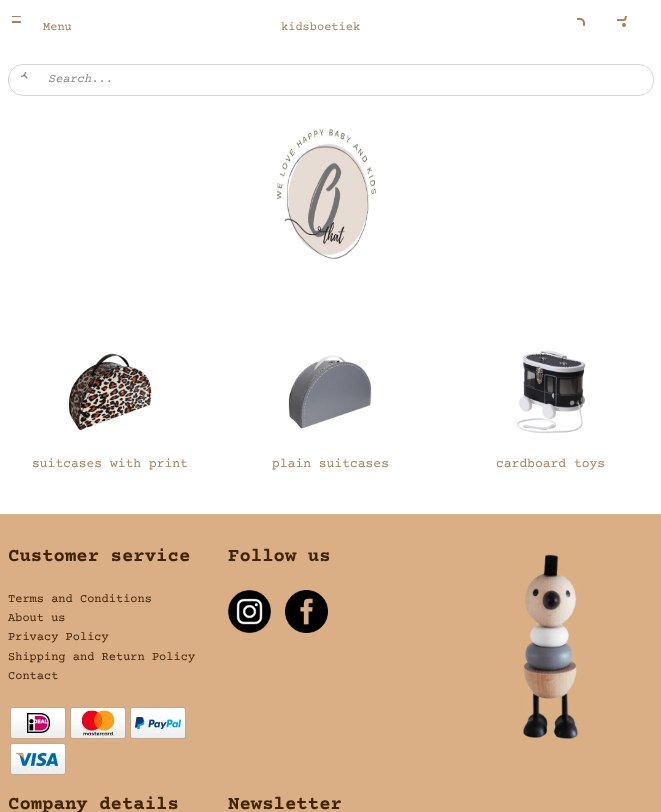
<!DOCTYPE html>
<meta charset="utf-8">
<style>body { margin: 0 } canvas { display: block }</style>
<canvas id="canvas" width="661" height="812"></canvas>
<img id="img1" src="img_01.png" hidden>
<img id="img2" src="img_02.png" hidden>
<img id="img3" src="img_03.png" hidden>
<img id="img4" src="img_04.png" hidden>
<img id="img5" src="img_05.png" hidden>
<img id="img6" src="img_06.png" hidden>
<img id="img7" src="img_07.png" hidden>
<img id="img8" src="img_08.png" hidden>
<img id="img9" src="img_09.png" hidden>
<img id="img10" src="img_10.png" hidden>
<img id="img11" src="img_11.png" hidden>
<img id="img12" src="img_12.png" hidden>
<img id="img13" src="img_13.png" hidden>
<img id="img14" src="img_14.png" hidden>
<img id="img15" src="img_15.png" hidden>
<script>
window.onload = function () {
	const canvas = document.getElementById("canvas");
	const ctx = canvas.getContext("2d");
	ctx.miterLimit = 4;
	ctx.fontKerning = "normal";
	function txt(s, x, y) {
		ctx.fillText(s, x, y);
	}
	function fill(x, y, w, h) {
		ctx.fillRect(x, y, w, h);
	}
	function img(id, x, y, w, h) {
		ctx.drawImage(document.getElementById(id), x, y, w, h);
	}

	ctx.fillStyle = "#FFFFFF";
	fill(0, 0, 661, 812);
	img("img1", 12, 16, 9, 7);
	img("img2", 577, 18, 8, 8);
	img("img3", 617, 16, 10, 11);
	ctx.beginPath();
	ctx.roundRect(8.5, 64.5, 645, 31, 14.5);
	ctx.strokeStyle = "#D3D5D9";
	ctx.stroke();
	img("img4", 21, 72, 7, 7);
	img("img5", 276, 128, 101, 131);
	img("img6", 68, 353, 84, 78);
	img("img7", 288, 355, 84, 74);
	img("img8", 517, 350, 69, 84);
	ctx.fillStyle = "#DAAF85";
	fill(0, 514, 661, 298);
	img("img9", 10, 707, 56, 32);
	img("img10", 70, 707, 56, 32);
	img("img11", 130, 707, 56, 32);
	img("img12", 10, 743, 56, 32);
	img("img13", 228, 590, 43, 43);
	img("img14", 285, 590, 43, 43);
	img("img15", 520, 554, 59, 186);
	ctx.font = "12px Courier Prime";
	ctx.fillStyle = "#A6805B";
	txt("Menu", 43, 30);
	txt("kidsboetiek", 281, 30);
	ctx.font = "italic 12px Courier Prime";
	ctx.fillStyle = "#898C91";
	txt("Search...", 48, 82);
	ctx.font = "13px Courier Prime";
	ctx.fillStyle = "#A6805B";
	txt("suitcases with print", 32, 467);
	txt("plain suitcases", 272, 467);
	txt("cardboard toys", 496, 467);
	ctx.font = "bold 19px Courier Prime";
	ctx.fillStyle = "#422304";
	txt("Customer service", 8, 561);
	ctx.font = "12px Courier Prime";
	txt("Terms and Conditions", 8, 602);
	txt("About us", 8, 621);
	txt("Privacy Policy", 8, 640);
	txt("Shipping and Return Policy", 8, 660);
	txt("Contact", 8, 679);
	ctx.font = "bold 19px Courier Prime";
	txt("Follow us", 228, 561);
	txt("Company details", 8, 809);
	txt("Newsletter", 228, 809);
};
</script>
